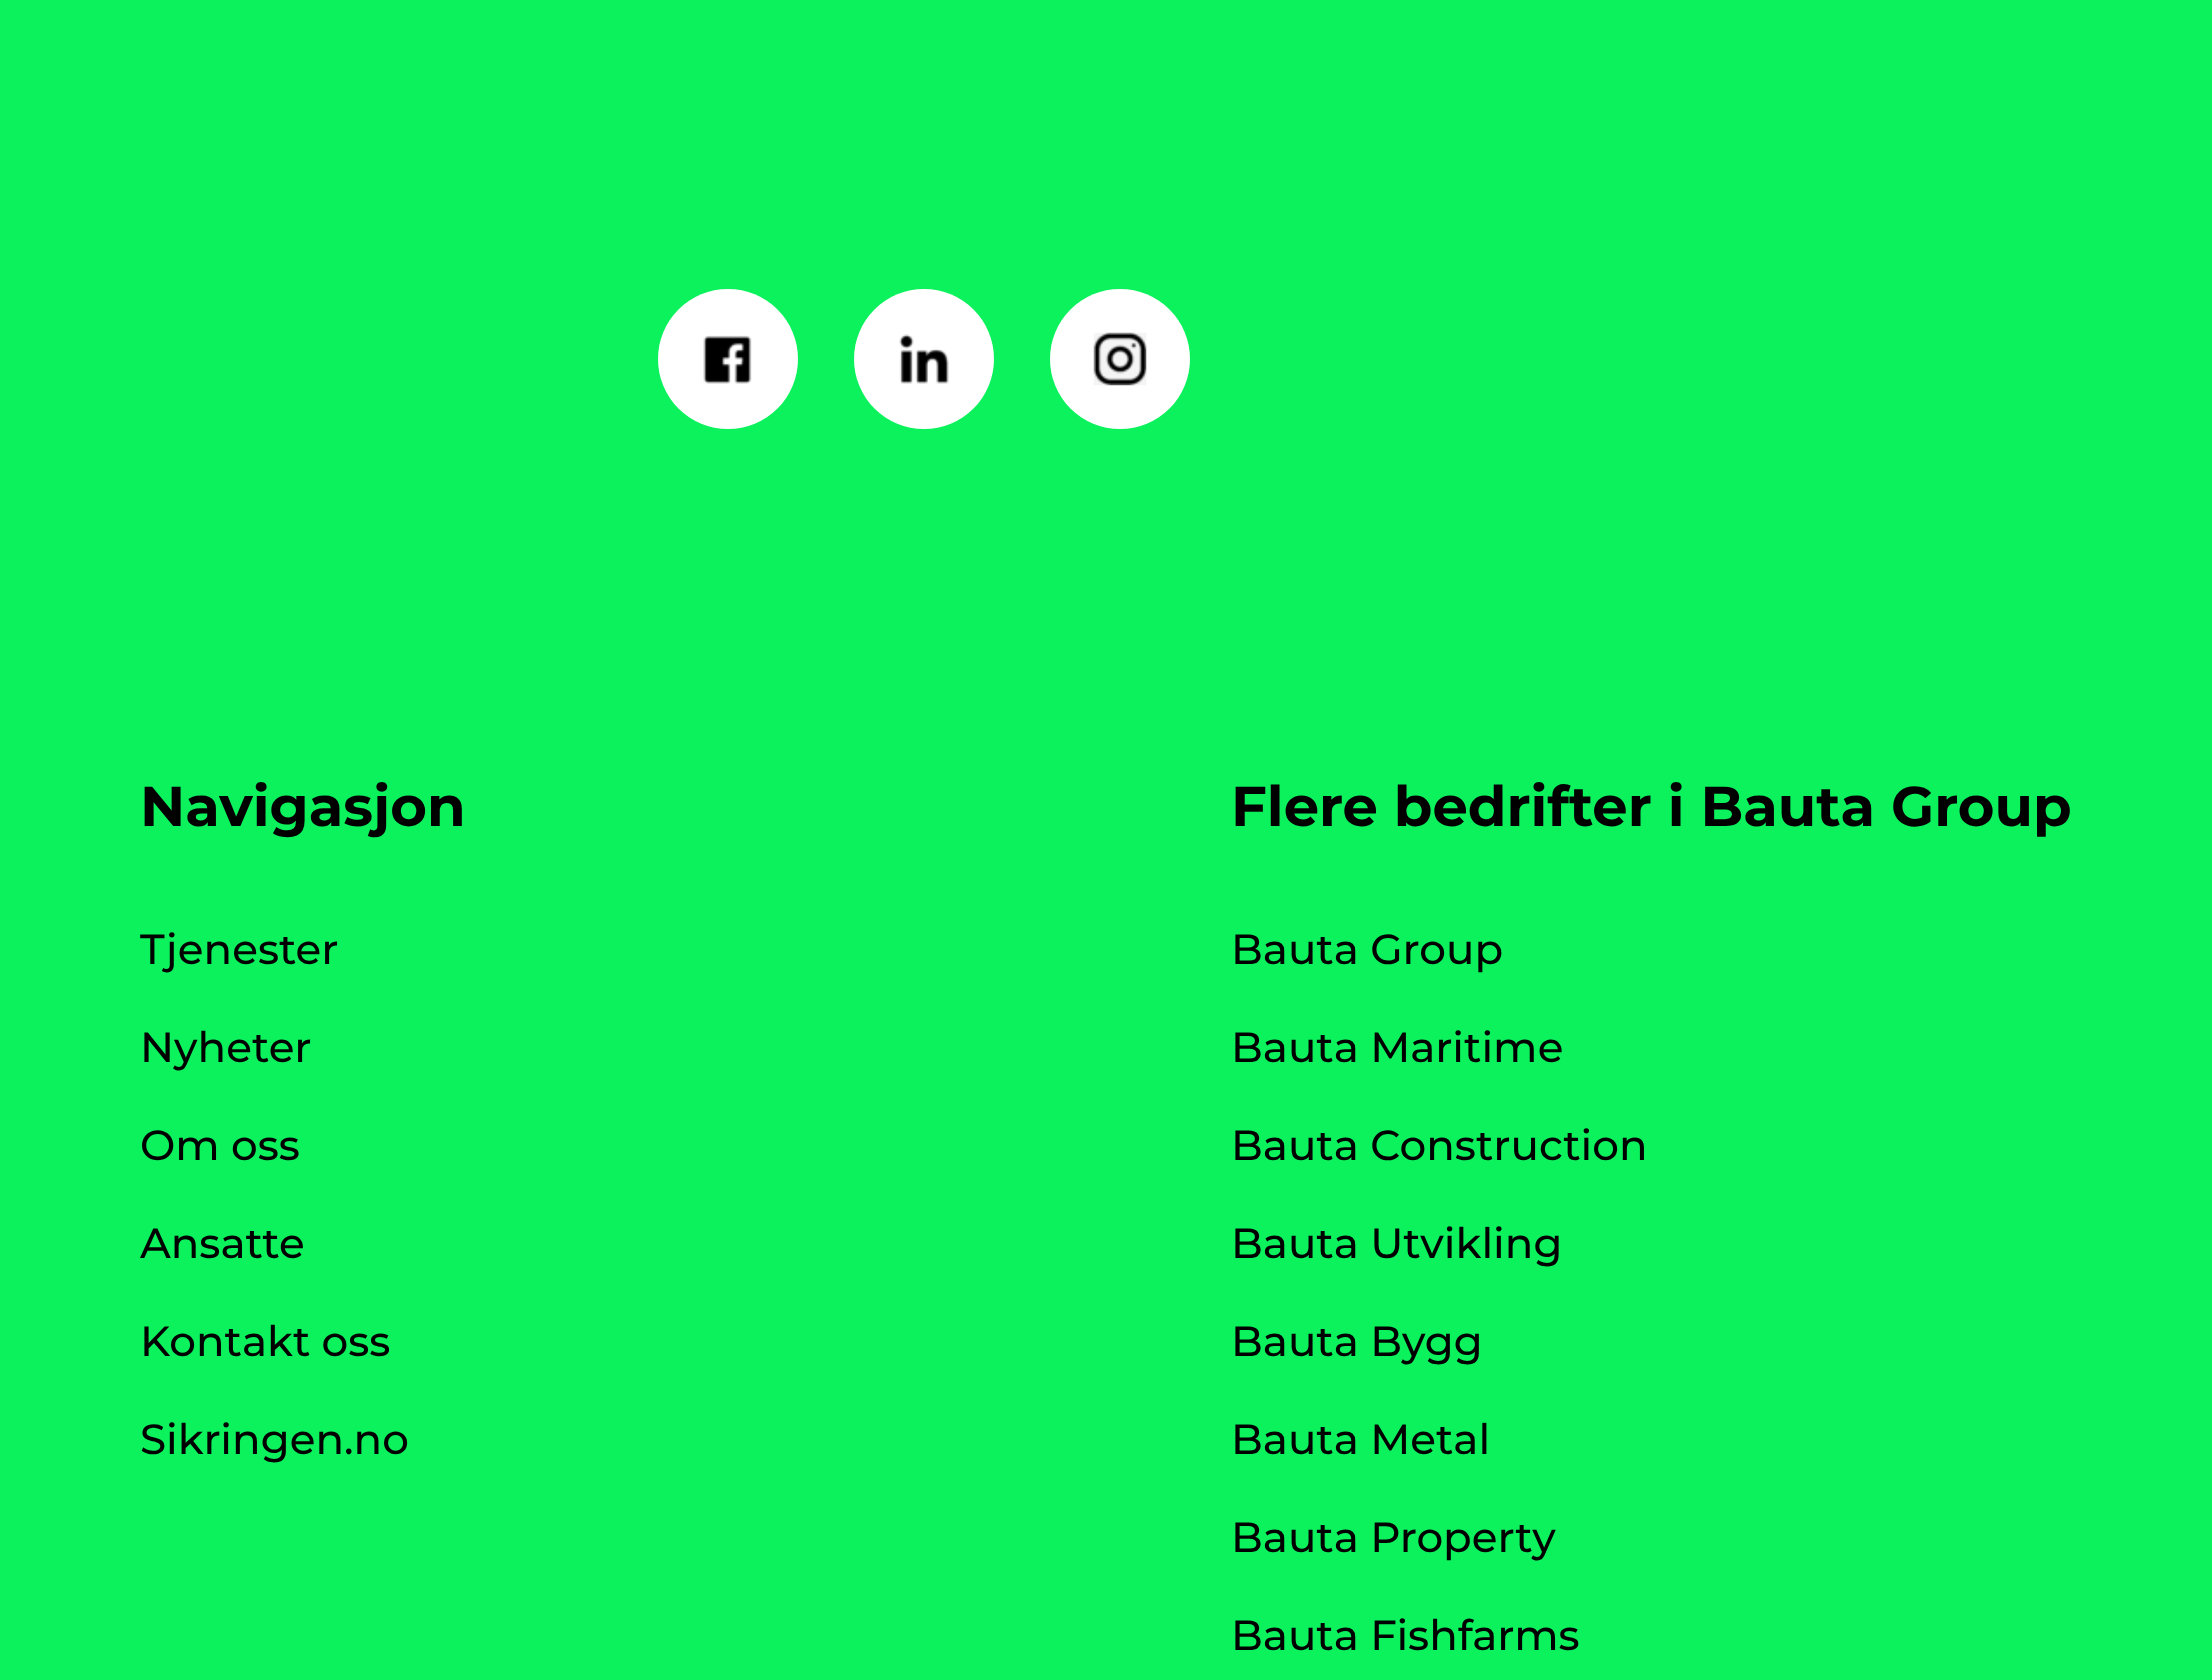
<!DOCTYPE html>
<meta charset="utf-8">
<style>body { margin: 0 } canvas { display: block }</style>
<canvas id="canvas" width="2212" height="1680"></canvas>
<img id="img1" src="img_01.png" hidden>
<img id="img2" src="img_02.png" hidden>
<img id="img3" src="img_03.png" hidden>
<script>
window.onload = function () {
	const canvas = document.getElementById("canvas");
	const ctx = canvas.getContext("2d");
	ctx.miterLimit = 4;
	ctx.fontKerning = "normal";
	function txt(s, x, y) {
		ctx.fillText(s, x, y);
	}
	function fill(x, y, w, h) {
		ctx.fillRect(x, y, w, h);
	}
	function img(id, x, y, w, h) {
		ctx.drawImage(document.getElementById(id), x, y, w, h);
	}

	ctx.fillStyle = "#0CF25D";
	fill(0, 0, 2212, 1680);
	ctx.fillStyle = "#FFFFFF";
	ctx.beginPath();
	ctx.arc(728, 359, 70, 0, Math.PI * 2);
	ctx.fill();
	img("img1", 703, 335, 49, 49);
	ctx.beginPath();
	ctx.arc(924, 359, 70, 0, Math.PI * 2);
	ctx.fill();
	img("img2", 899, 334, 50, 50);
	ctx.beginPath();
	ctx.arc(1120, 359, 70, 0, Math.PI * 2);
	ctx.fill();
	img("img3", 1093, 332, 54, 54);
	ctx.font = "bold 56px Montserrat";
	ctx.fillStyle = "#000000";
	txt("Navigasjon", 140, 826);
	ctx.font = "500 42px Montserrat";
	txt("Tjenester", 140, 964);
	txt("Nyheter", 140, 1062);
	txt("Om oss", 140, 1160);
	txt("Ansatte", 140, 1258);
	txt("Kontakt oss", 140, 1356);
	txt("Sikringen.no", 140, 1454);
	ctx.font = "bold 56px Montserrat";
	txt("Flere bedrifter i Bauta Group", 1231, 826);
	ctx.font = "500 42px Montserrat";
	txt("Bauta Group", 1231, 964);
	txt("Bauta Maritime", 1231, 1062);
	txt("Bauta Construction", 1231, 1160);
	txt("Bauta Utvikling", 1231, 1258);
	txt("Bauta Bygg", 1231, 1356);
	txt("Bauta Metal", 1231, 1454);
	txt("Bauta Property", 1231, 1552);
	txt("Bauta Fishfarms", 1231, 1650);
};
</script>
